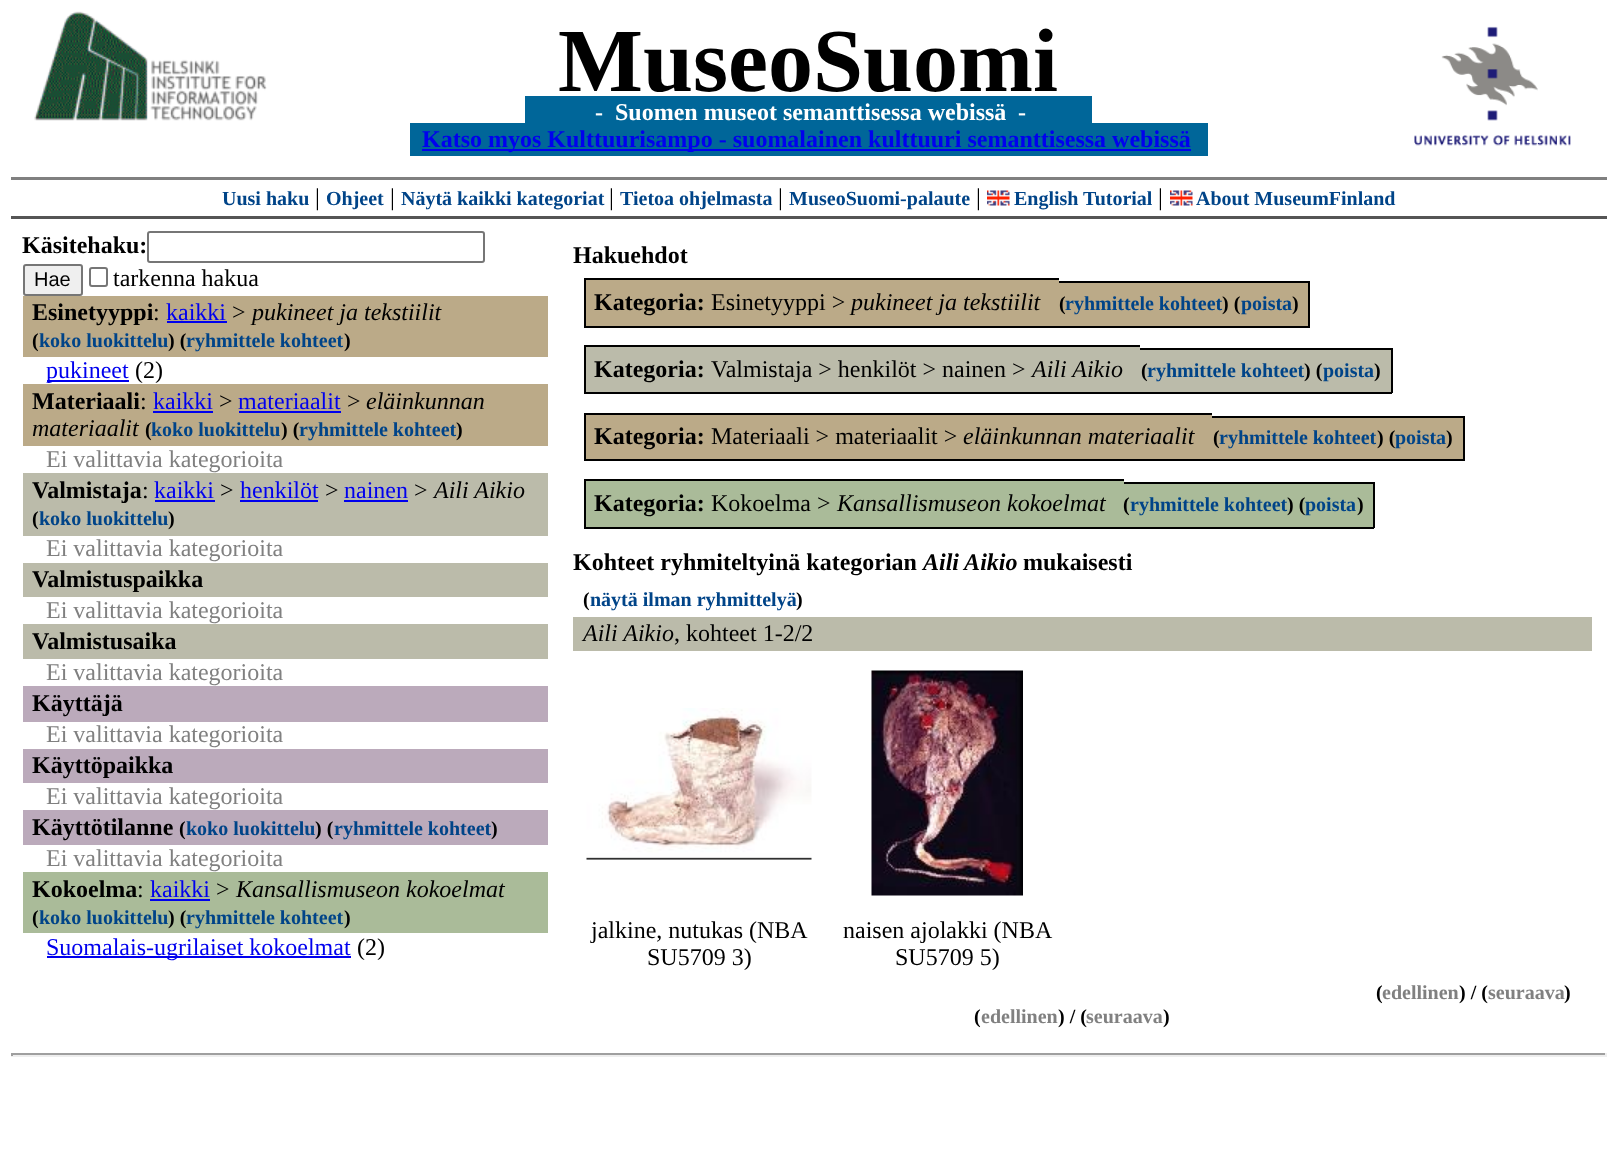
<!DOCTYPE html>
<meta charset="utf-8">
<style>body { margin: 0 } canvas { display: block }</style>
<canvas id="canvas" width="1616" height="1173"></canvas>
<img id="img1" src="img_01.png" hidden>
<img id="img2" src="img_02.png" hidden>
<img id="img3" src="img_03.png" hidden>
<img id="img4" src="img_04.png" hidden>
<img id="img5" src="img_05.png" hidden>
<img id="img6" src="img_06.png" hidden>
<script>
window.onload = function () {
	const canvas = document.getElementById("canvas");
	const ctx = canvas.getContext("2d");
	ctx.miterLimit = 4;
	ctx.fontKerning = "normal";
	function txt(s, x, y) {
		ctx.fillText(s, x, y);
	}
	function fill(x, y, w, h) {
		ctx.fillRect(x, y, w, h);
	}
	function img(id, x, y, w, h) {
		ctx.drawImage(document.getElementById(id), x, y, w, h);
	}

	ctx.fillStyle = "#FFFFFF";
	fill(0, 0, 1616, 1173);
	img("img1", 34, 11, 233, 110);
	img("img2", 1414, 26, 157, 120);
	ctx.fillStyle = "#006699";
	fill(525, 96, 567, 27);
	fill(410, 123, 798, 33);
	ctx.fillStyle = "#0000EE";
	fill(422, 149, 769, 2);
	ctx.fillStyle = "#808080";
	fill(11, 177, 1596, 3);
	ctx.fillStyle = "#555555";
	fill(11, 216, 1596, 3);
	img("img3", 987, 190, 23, 16);
	img("img4", 1170, 190, 23, 16);
	ctx.beginPath();
	ctx.roundRect(148, 232, 336, 30, 2);
	ctx.strokeStyle = "#767676";
	ctx.lineWidth = 2;
	ctx.stroke();
	ctx.fillStyle = "#EFEFEF";
	ctx.beginPath();
	ctx.roundRect(24, 265, 58, 30, 2);
	ctx.fill();
	ctx.stroke();
	ctx.beginPath();
	ctx.roundRect(90, 268, 17, 18, 2);
	ctx.stroke();
	ctx.fillStyle = "#BBAA88";
	fill(23, 296, 525, 61);
	ctx.fillStyle = "#0000EE";
	fill(167, 321, 60, 2);
	fill(47, 380, 82, 2);
	ctx.fillStyle = "#BBAA88";
	fill(23, 384, 525, 62);
	ctx.fillStyle = "#0000EE";
	fill(153, 411, 60, 2);
	fill(239, 411, 102, 2);
	ctx.fillStyle = "#BBBBAA";
	fill(23, 473, 525, 63);
	ctx.fillStyle = "#0000EE";
	fill(155, 500, 60, 2);
	fill(240, 500, 78, 2);
	fill(344, 500, 64, 2);
	ctx.fillStyle = "#BBBBAA";
	fill(23, 563, 525, 34);
	fill(23, 624, 525, 35);
	ctx.fillStyle = "#BBAABB";
	fill(23, 686, 525, 36);
	fill(23, 749, 525, 34);
	fill(23, 810, 525, 35);
	ctx.fillStyle = "#AABB99";
	fill(23, 872, 525, 61);
	ctx.fillStyle = "#0000EE";
	fill(150, 899, 60, 2);
	fill(47, 956, 304, 2);
	ctx.fillStyle = "#BBAA88";
	fill(586, 280, 473, 46);
	ctx.fillStyle = "#000000";
	fill(584, 278, 475, 2);
	fill(584, 326, 475, 2);
	fill(584, 278, 2, 49);
	ctx.fillStyle = "#BBAA88";
	fill(1059, 281, 6, 46);
	ctx.fillStyle = "#000000";
	fill(1059, 281, 176, 2);
	fill(1059, 326, 176, 2);
	ctx.fillStyle = "#BBAA88";
	fill(1065, 283, 170, 43);
	fill(1235, 281, 6, 46);
	ctx.fillStyle = "#000000";
	fill(1235, 281, 75, 2);
	fill(1235, 326, 57, 2);
	ctx.fillStyle = "#BBAA88";
	fill(1241, 283, 67, 43);
	ctx.fillStyle = "#000000";
	fill(1308, 281, 2, 46);
	fill(1292, 326, 18, 2);
	fill(584, 345, 556, 2);
	fill(584, 392, 556, 2);
	fill(584, 345, 2, 48);
	ctx.fillStyle = "#BBBBAA";
	fill(586, 347, 554, 45);
	fill(1140, 348, 8, 45);
	ctx.fillStyle = "#000000";
	fill(1140, 348, 176, 2);
	fill(1140, 392, 176, 2);
	ctx.fillStyle = "#BBBBAA";
	fill(1148, 350, 168, 42);
	fill(1316, 348, 7, 45);
	ctx.fillStyle = "#000000";
	fill(1316, 348, 76, 2);
	fill(1316, 392, 58, 2);
	ctx.fillStyle = "#BBBBAA";
	fill(1323, 350, 68, 42);
	ctx.fillStyle = "#000000";
	fill(1391, 348, 2, 45);
	fill(1374, 392, 18, 2);
	fill(584, 413, 628, 2);
	fill(584, 459, 628, 2);
	fill(584, 413, 2, 48);
	ctx.fillStyle = "#BBAA88";
	fill(586, 415, 626, 44);
	fill(1212, 416, 8, 45);
	ctx.fillStyle = "#000000";
	fill(1212, 416, 176, 2);
	fill(1212, 459, 176, 2);
	ctx.fillStyle = "#BBAA88";
	fill(1220, 418, 168, 41);
	fill(1388, 416, 7, 45);
	ctx.fillStyle = "#000000";
	fill(1388, 416, 76, 2);
	fill(1388, 459, 58, 2);
	ctx.fillStyle = "#BBAA88";
	fill(1395, 418, 68, 41);
	ctx.fillStyle = "#000000";
	fill(1463, 416, 2, 45);
	fill(1446, 459, 18, 2);
	fill(584, 479, 540, 2);
	fill(584, 527, 540, 2);
	fill(584, 479, 2, 49);
	ctx.fillStyle = "#AABB99";
	fill(586, 481, 538, 46);
	fill(1124, 482, 6, 46);
	ctx.fillStyle = "#000000";
	fill(1124, 482, 175, 2);
	fill(1124, 527, 175, 2);
	ctx.fillStyle = "#AABB99";
	fill(1130, 484, 169, 43);
	fill(1299, 482, 6, 46);
	ctx.fillStyle = "#000000";
	fill(1299, 482, 75, 2);
	fill(1299, 527, 57, 2);
	ctx.fillStyle = "#AABB99";
	fill(1305, 484, 68, 43);
	ctx.fillStyle = "#000000";
	fill(1373, 482, 2, 46);
	fill(1356, 527, 18, 2);
	ctx.fillStyle = "#BBBBAA";
	fill(573, 617, 1019, 34);
	img("img5", 586, 708, 226, 152);
	img("img6", 871, 670, 152, 226);
	ctx.fillStyle = "#9F9F9F";
	fill(11, 1053, 1596, 2);
	ctx.fillStyle = "#EEEEEE";
	fill(1605, 1053, 2, 3);
	fill(11, 1055, 1596, 2);
	ctx.fillStyle = "#9F9F9F";
	fill(11, 1053, 2, 3);
	ctx.font = "bold 90px Liberation Serif";
	ctx.fillStyle = "#000000";
	txt("MuseoSuomi", 558, 91);
	ctx.font = "bold 24px Liberation Serif";
	ctx.fillStyle = "#FFFFFF";
	txt("-", 595, 120);
	txt("Suomen museot semanttisessa webissä", 615, 120);
	txt("-", 1018, 120);
	ctx.fillStyle = "#0000EE";
	txt("Katso myos Kulttuurisampo - suomalainen kulttuuri semanttisessa webissä", 422, 147);
	ctx.font = "bold 20px Liberation Serif";
	ctx.fillStyle = "#004488";
	txt("Uusi haku", 222, 205);
	ctx.font = "24px Liberation Serif";
	ctx.fillStyle = "#000000";
	txt("|", 315, 205);
	ctx.font = "bold 20px Liberation Serif";
	ctx.fillStyle = "#004488";
	txt("Ohjeet", 326, 205);
	ctx.font = "24px Liberation Serif";
	ctx.fillStyle = "#000000";
	txt("|", 390, 205);
	ctx.font = "bold 20px Liberation Serif";
	ctx.fillStyle = "#004488";
	txt("Näytä kaikki kategoriat", 401, 205);
	ctx.font = "24px Liberation Serif";
	ctx.fillStyle = "#000000";
	txt("|", 609, 205);
	ctx.font = "bold 20px Liberation Serif";
	ctx.fillStyle = "#004488";
	txt("Tietoa ohjelmasta", 620, 205);
	ctx.font = "24px Liberation Serif";
	ctx.fillStyle = "#000000";
	txt("|", 778, 205);
	ctx.font = "bold 20px Liberation Serif";
	ctx.fillStyle = "#004488";
	txt("MuseoSuomi-palaute", 789, 205);
	ctx.font = "24px Liberation Serif";
	ctx.fillStyle = "#000000";
	txt("|", 976, 205);
	ctx.font = "bold 20px Liberation Serif";
	ctx.fillStyle = "#004488";
	txt("English Tutorial", 1014, 205);
	ctx.font = "24px Liberation Serif";
	ctx.fillStyle = "#000000";
	txt("|", 1158, 205);
	ctx.font = "bold 20px Liberation Serif";
	ctx.fillStyle = "#004488";
	txt("About MuseumFinland", 1196, 205);
	ctx.font = "bold 24px Liberation Serif";
	ctx.fillStyle = "#000000";
	txt("Käsitehaku:", 22, 253);
	ctx.font = "20px Liberation Sans";
	txt("Hae", 34, 286);
	ctx.font = "24px Liberation Serif";
	txt("tarkenna hakua", 113, 286);
	ctx.font = "bold 24px Liberation Serif";
	txt("Esinetyyppi", 32, 320);
	ctx.font = "24px Liberation Serif";
	txt(":", 153, 320);
	ctx.fillStyle = "#0000EE";
	txt("kaikki", 166, 320);
	ctx.fillStyle = "#000000";
	txt(">", 232, 320);
	ctx.font = "italic 24px Liberation Serif";
	txt("pukineet ja tekstiilit", 252, 320);
	ctx.font = "bold 20px Liberation Serif";
	txt("(", 32, 347);
	ctx.fillStyle = "#004488";
	txt("koko luokittelu", 39, 347);
	ctx.fillStyle = "#000000";
	txt(") (", 168, 347);
	ctx.fillStyle = "#004488";
	txt("ryhmittele kohteet", 186, 347);
	ctx.fillStyle = "#000000";
	txt(")", 344, 347);
	ctx.font = "24px Liberation Serif";
	ctx.fillStyle = "#0000EE";
	txt("pukineet", 46, 378);
	ctx.fillStyle = "#000000";
	txt("(2)", 135, 378);
	ctx.font = "bold 24px Liberation Serif";
	txt("Materiaali", 32, 409);
	ctx.font = "24px Liberation Serif";
	txt(":", 140, 409);
	ctx.fillStyle = "#0000EE";
	txt("kaikki", 153, 409);
	ctx.fillStyle = "#000000";
	txt(">", 219, 409);
	ctx.fillStyle = "#0000EE";
	txt("materiaalit", 238, 409);
	ctx.fillStyle = "#000000";
	txt(">", 347, 409);
	ctx.font = "italic 24px Liberation Serif";
	txt("eläinkunnan", 366, 409);
	txt("materiaalit", 32, 436);
	ctx.font = "bold 20px Liberation Serif";
	txt("(", 145, 436);
	ctx.fillStyle = "#004488";
	txt("koko luokittelu", 151, 436);
	ctx.fillStyle = "#000000";
	txt(") (", 281, 436);
	ctx.fillStyle = "#004488";
	txt("ryhmittele kohteet", 299, 436);
	ctx.fillStyle = "#000000";
	txt(")", 456, 436);
	ctx.font = "24px Liberation Serif";
	ctx.fillStyle = "#808080";
	txt("Ei valittavia kategorioita", 46, 467);
	ctx.font = "bold 24px Liberation Serif";
	ctx.fillStyle = "#000000";
	txt("Valmistaja", 32, 498);
	ctx.font = "24px Liberation Serif";
	txt(":", 142, 498);
	ctx.fillStyle = "#0000EE";
	txt("kaikki", 154, 498);
	ctx.fillStyle = "#000000";
	txt(">", 220, 498);
	ctx.fillStyle = "#0000EE";
	txt("henkilöt", 240, 498);
	ctx.fillStyle = "#000000";
	txt(">", 325, 498);
	ctx.fillStyle = "#0000EE";
	txt("nainen", 344, 498);
	ctx.fillStyle = "#000000";
	txt(">", 414, 498);
	ctx.font = "italic 24px Liberation Serif";
	txt("Aili Aikio", 434, 498);
	ctx.font = "bold 20px Liberation Serif";
	txt("(", 32, 525);
	ctx.fillStyle = "#004488";
	txt("koko luokittelu", 39, 525);
	ctx.fillStyle = "#000000";
	txt(")", 168, 525);
	ctx.font = "24px Liberation Serif";
	ctx.fillStyle = "#808080";
	txt("Ei valittavia kategorioita", 46, 556);
	ctx.font = "bold 24px Liberation Serif";
	ctx.fillStyle = "#000000";
	txt("Valmistuspaikka", 32, 587);
	ctx.font = "24px Liberation Serif";
	ctx.fillStyle = "#808080";
	txt("Ei valittavia kategorioita", 46, 618);
	ctx.font = "bold 24px Liberation Serif";
	ctx.fillStyle = "#000000";
	txt("Valmistusaika", 32, 649);
	ctx.font = "24px Liberation Serif";
	ctx.fillStyle = "#808080";
	txt("Ei valittavia kategorioita", 46, 680);
	ctx.font = "bold 24px Liberation Serif";
	ctx.fillStyle = "#000000";
	txt("Käyttäjä", 32, 711);
	ctx.font = "24px Liberation Serif";
	ctx.fillStyle = "#808080";
	txt("Ei valittavia kategorioita", 46, 742);
	ctx.font = "bold 24px Liberation Serif";
	ctx.fillStyle = "#000000";
	txt("Käyttöpaikka", 32, 773);
	ctx.font = "24px Liberation Serif";
	ctx.fillStyle = "#808080";
	txt("Ei valittavia kategorioita", 46, 804);
	ctx.font = "bold 24px Liberation Serif";
	ctx.fillStyle = "#000000";
	txt("Käyttötilanne", 32, 835);
	ctx.font = "bold 20px Liberation Serif";
	txt("(", 179, 835);
	ctx.fillStyle = "#004488";
	txt("koko luokittelu", 186, 835);
	ctx.fillStyle = "#000000";
	txt(") (", 315, 835);
	ctx.fillStyle = "#004488";
	txt("ryhmittele kohteet", 334, 835);
	ctx.fillStyle = "#000000";
	txt(")", 491, 835);
	ctx.font = "24px Liberation Serif";
	ctx.fillStyle = "#808080";
	txt("Ei valittavia kategorioita", 46, 866);
	ctx.font = "bold 24px Liberation Serif";
	ctx.fillStyle = "#000000";
	txt("Kokoelma", 32, 897);
	ctx.font = "24px Liberation Serif";
	txt(":", 137, 897);
	ctx.fillStyle = "#0000EE";
	txt("kaikki", 150, 897);
	ctx.fillStyle = "#000000";
	txt(">", 216, 897);
	ctx.font = "italic 24px Liberation Serif";
	txt("Kansallismuseon kokoelmat", 236, 897);
	ctx.font = "bold 20px Liberation Serif";
	txt("(", 32, 924);
	ctx.fillStyle = "#004488";
	txt("koko luokittelu", 39, 924);
	ctx.fillStyle = "#000000";
	txt(") (", 168, 924);
	ctx.fillStyle = "#004488";
	txt("ryhmittele kohteet", 186, 924);
	ctx.fillStyle = "#000000";
	txt(")", 344, 924);
	ctx.font = "24px Liberation Serif";
	ctx.fillStyle = "#0000EE";
	txt("Suomalais-ugrilaiset kokoelmat", 46, 955);
	ctx.fillStyle = "#000000";
	txt("(2)", 357, 955);
	ctx.font = "bold 24px Liberation Serif";
	txt("Hakuehdot", 573, 263);
	txt("Kategoria:", 594, 310);
	ctx.font = "24px Liberation Serif";
	txt("Esinetyyppi >", 711, 310);
	ctx.font = "italic 24px Liberation Serif";
	txt("pukineet ja tekstiilit", 851, 310);
	ctx.font = "bold 20px Liberation Serif";
	txt("(", 1059, 310);
	ctx.fillStyle = "#004488";
	txt("ryhmittele kohteet", 1065, 310);
	ctx.fillStyle = "#000000";
	txt(") (", 1222, 310);
	ctx.fillStyle = "#004488";
	txt("poista", 1241, 310);
	ctx.fillStyle = "#000000";
	txt(")", 1292, 310);
	ctx.font = "bold 24px Liberation Serif";
	txt("Kategoria:", 594, 377);
	ctx.font = "24px Liberation Serif";
	txt("Valmistaja > henkilöt > nainen >", 711, 377);
	ctx.font = "italic 24px Liberation Serif";
	txt("Aili Aikio", 1032, 377);
	ctx.font = "bold 20px Liberation Serif";
	txt("(", 1141, 377);
	ctx.fillStyle = "#004488";
	txt("ryhmittele kohteet", 1147, 377);
	ctx.fillStyle = "#000000";
	txt(") (", 1304, 377);
	ctx.fillStyle = "#004488";
	txt("poista", 1323, 377);
	ctx.fillStyle = "#000000";
	txt(")", 1374, 377);
	ctx.font = "bold 24px Liberation Serif";
	txt("Kategoria:", 594, 444);
	ctx.font = "24px Liberation Serif";
	txt("Materiaali > materiaalit >", 711, 444);
	ctx.font = "italic 24px Liberation Serif";
	txt("eläinkunnan materiaalit", 963, 444);
	ctx.font = "bold 20px Liberation Serif";
	txt("(", 1213, 444);
	ctx.fillStyle = "#004488";
	txt("ryhmittele kohteet", 1219, 444);
	ctx.fillStyle = "#000000";
	txt(") (", 1377, 444);
	ctx.fillStyle = "#004488";
	txt("poista", 1395, 444);
	ctx.fillStyle = "#000000";
	txt(")", 1446, 444);
	ctx.font = "bold 24px Liberation Serif";
	txt("Kategoria:", 594, 511);
	ctx.font = "24px Liberation Serif";
	txt("Kokoelma >", 711, 511);
	ctx.font = "italic 24px Liberation Serif";
	txt("Kansallismuseon kokoelmat", 837, 511);
	ctx.font = "bold 20px Liberation Serif";
	txt("(", 1123, 511);
	ctx.fillStyle = "#004488";
	txt("ryhmittele kohteet", 1130, 511);
	ctx.fillStyle = "#000000";
	txt(") (", 1287, 511);
	ctx.fillStyle = "#004488";
	txt("poista", 1305, 511);
	ctx.fillStyle = "#000000";
	txt(")", 1357, 511);
	ctx.font = "bold 24px Liberation Serif";
	txt("Kohteet ryhmiteltyinä kategorian", 573, 570);
	ctx.font = "italic bold 24px Liberation Serif";
	txt("Aili Aikio", 923, 570);
	ctx.font = "bold 24px Liberation Serif";
	txt("mukaisesti", 1023, 570);
	ctx.font = "bold 20px Liberation Serif";
	txt("(", 583, 606);
	ctx.fillStyle = "#004488";
	txt("näytä ilman ryhmittelyä", 590, 606);
	ctx.fillStyle = "#000000";
	txt(")", 796, 606);
	ctx.font = "italic 24px Liberation Serif";
	txt("Aili Aikio", 583, 641);
	ctx.font = "24px Liberation Serif";
	txt(", kohteet 1-2/2", 674, 641);
	txt("jalkine, nutukas (NBA", 591, 938);
	txt("SU5709 3)", 647, 965);
	txt("naisen ajolakki (NBA", 843, 938);
	txt("SU5709 5)", 895, 965);
	ctx.font = "bold 20px Liberation Serif";
	txt("(", 1376, 999);
	ctx.fillStyle = "#808080";
	txt("edellinen", 1382, 999);
	ctx.fillStyle = "#000000";
	txt(") / (", 1459, 999);
	ctx.fillStyle = "#808080";
	txt("seuraava", 1488, 999);
	ctx.fillStyle = "#000000";
	txt(")", 1564, 999);
	txt("(", 974, 1023);
	ctx.fillStyle = "#808080";
	txt("edellinen", 981, 1023);
	ctx.fillStyle = "#000000";
	txt(") / (", 1058, 1023);
	ctx.fillStyle = "#808080";
	txt("seuraava", 1086, 1023);
	ctx.fillStyle = "#000000";
	txt(")", 1163, 1023);
};
</script>
